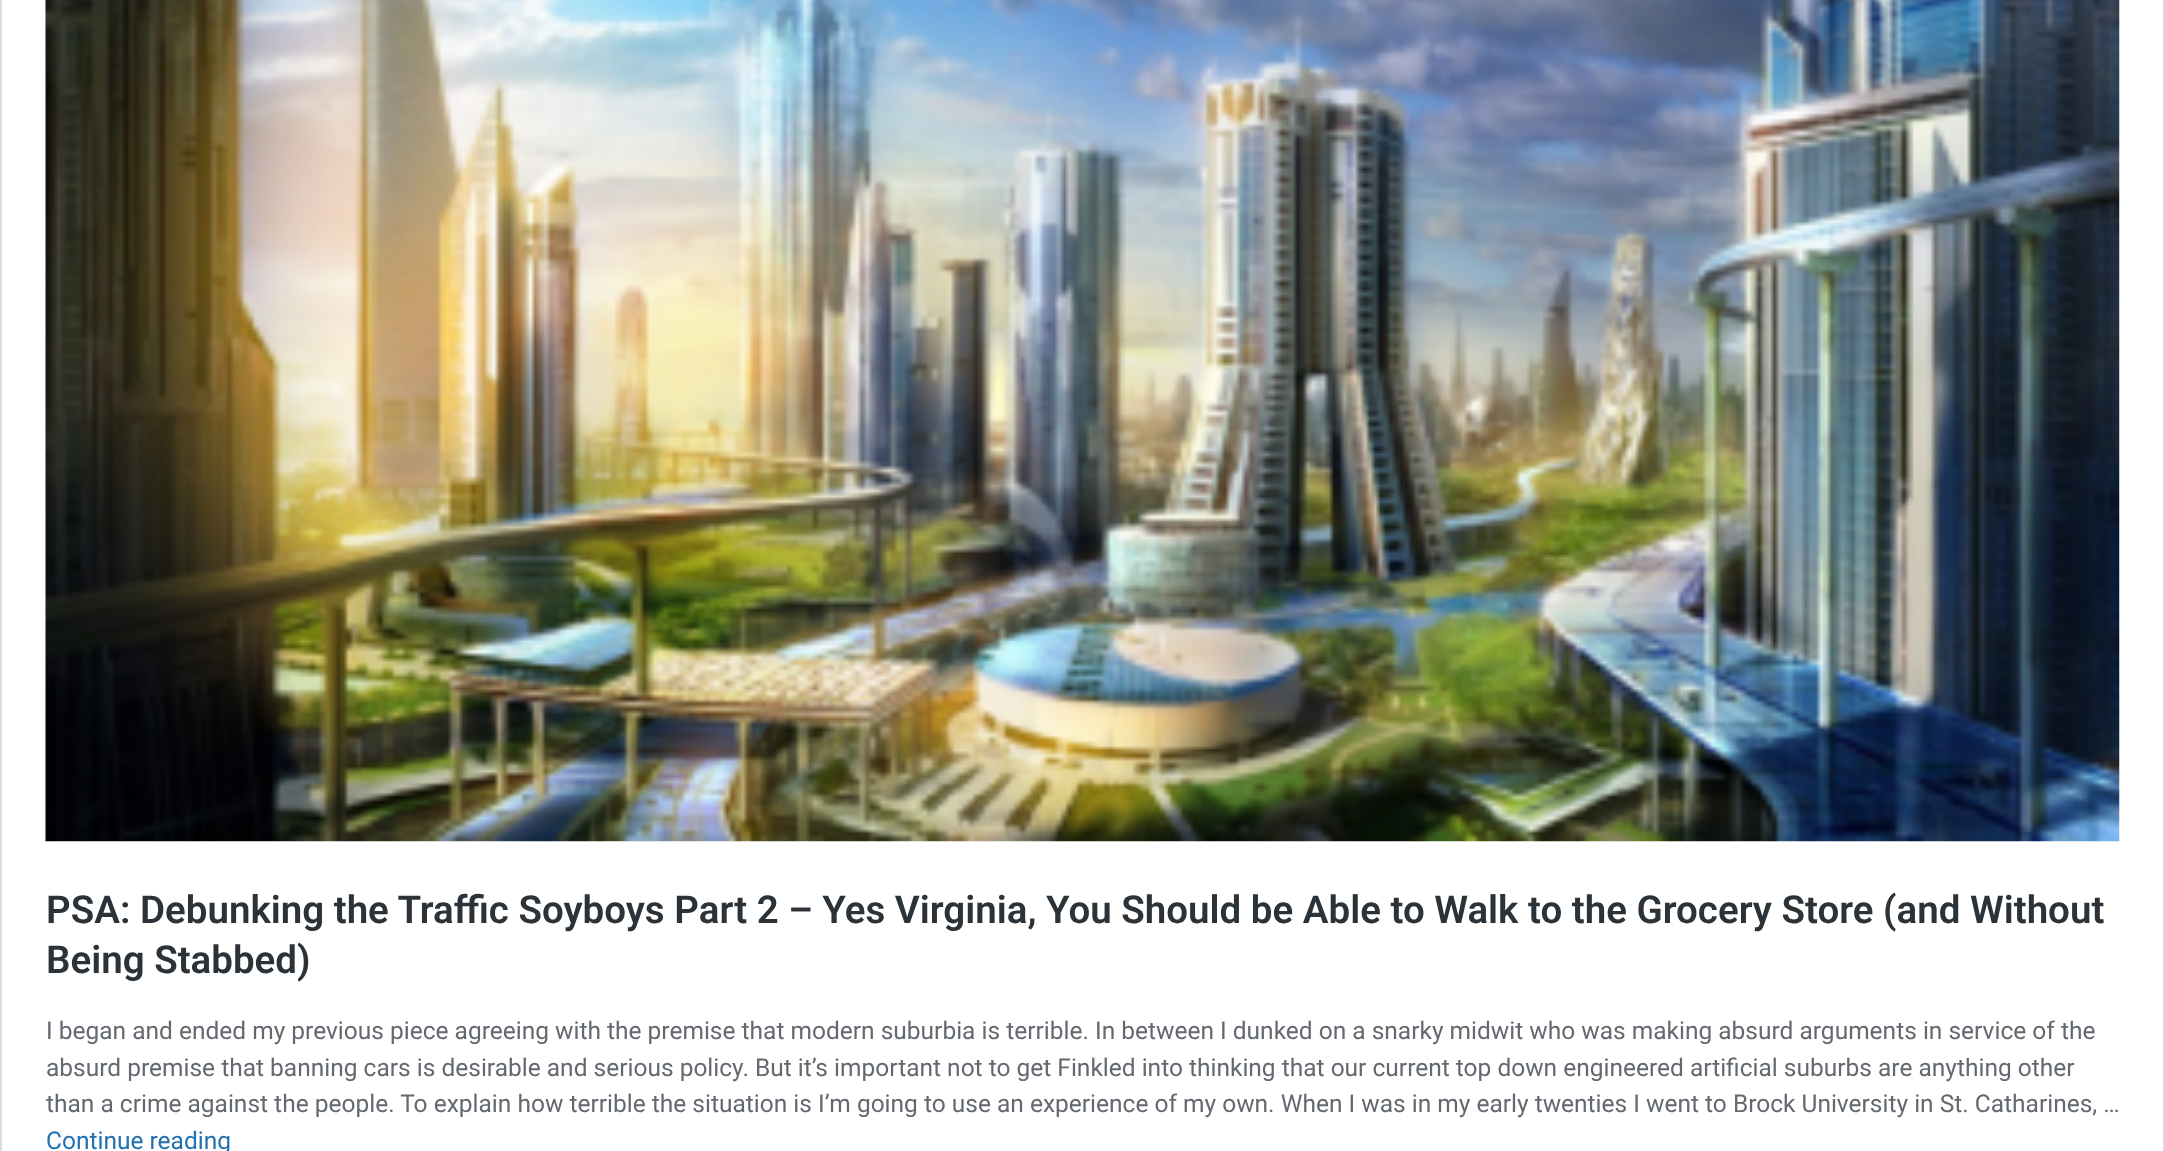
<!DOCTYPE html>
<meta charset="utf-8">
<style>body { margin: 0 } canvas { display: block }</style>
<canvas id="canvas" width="2164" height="1151"></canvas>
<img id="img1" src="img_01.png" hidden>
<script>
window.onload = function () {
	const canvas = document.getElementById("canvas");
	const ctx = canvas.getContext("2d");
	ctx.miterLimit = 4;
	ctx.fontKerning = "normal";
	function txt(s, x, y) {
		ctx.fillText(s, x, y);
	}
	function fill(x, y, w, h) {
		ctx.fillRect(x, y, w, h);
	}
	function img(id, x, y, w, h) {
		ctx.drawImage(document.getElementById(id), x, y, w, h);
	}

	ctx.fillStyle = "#FFFFFF";
	fill(0, 0, 2164, 1151);
	ctx.strokeStyle = "#DCDCDE";
	ctx.lineWidth = 2;
	ctx.strokeRect(1, -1, 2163, 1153);
	img("img1", 45, 0, 2075, 842);
	ctx.font = "600 38.5px Roboto";
	ctx.fillStyle = "#2C3338";
	txt("PSA: Debunking the Traffic Soyboys Part 2 – Yes Virginia, You Should be Able to Walk to the Grocery Store (and Without", 46, 923);
	txt("Being Stabbed)", 46, 973);
	ctx.font = "24.5px Roboto";
	ctx.fillStyle = "#646970";
	txt("I began and ended my previous piece agreeing with the premise that modern suburbia is terrible. In between I dunked on a snarky midwit who was making absurd arguments in service of the", 46, 1039);
	txt("absurd premise that banning cars is desirable and serious policy. But it’s important not to get Finkled into thinking that our current top down engineered artificial suburbs are anything other", 46, 1076);
	txt("than a crime against the people. To explain how terrible the situation is I’m going to use an experience of my own. When I was in my early twenties I went to Brock University in St. Catharines, …", 46, 1112);
	ctx.fillStyle = "#2271B1";
	txt("Continue reading", 46, 1149);
};
</script>
